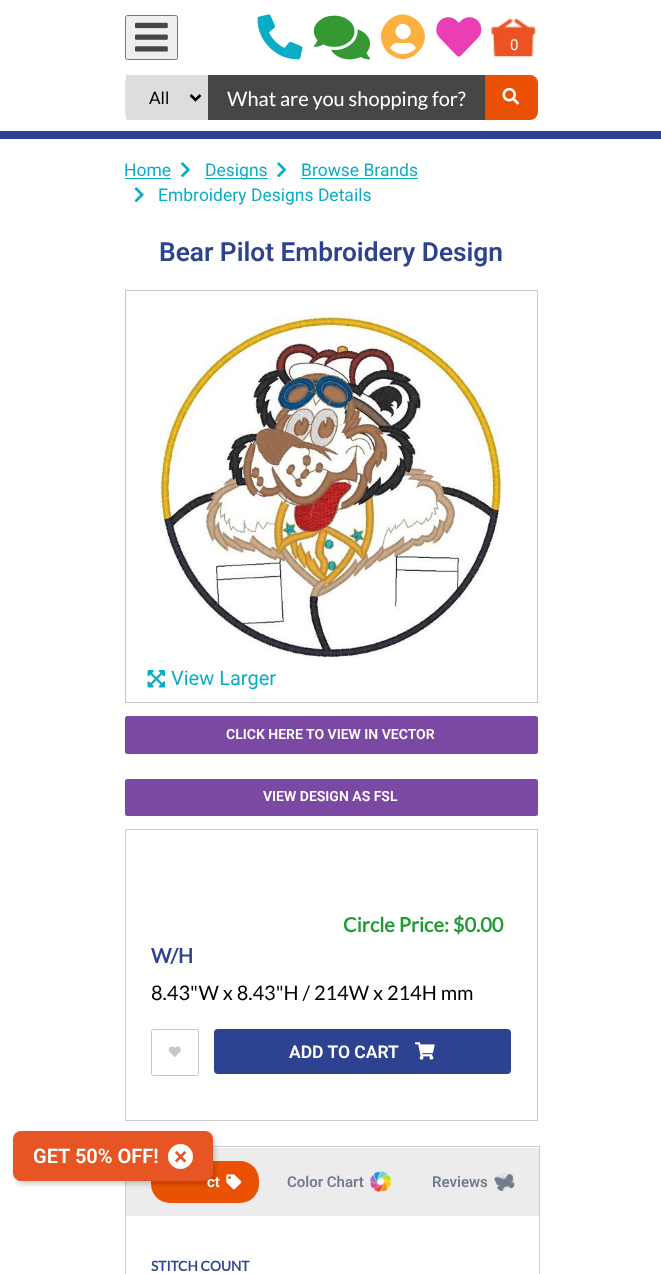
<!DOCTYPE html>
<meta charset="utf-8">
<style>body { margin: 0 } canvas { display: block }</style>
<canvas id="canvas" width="661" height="1274"></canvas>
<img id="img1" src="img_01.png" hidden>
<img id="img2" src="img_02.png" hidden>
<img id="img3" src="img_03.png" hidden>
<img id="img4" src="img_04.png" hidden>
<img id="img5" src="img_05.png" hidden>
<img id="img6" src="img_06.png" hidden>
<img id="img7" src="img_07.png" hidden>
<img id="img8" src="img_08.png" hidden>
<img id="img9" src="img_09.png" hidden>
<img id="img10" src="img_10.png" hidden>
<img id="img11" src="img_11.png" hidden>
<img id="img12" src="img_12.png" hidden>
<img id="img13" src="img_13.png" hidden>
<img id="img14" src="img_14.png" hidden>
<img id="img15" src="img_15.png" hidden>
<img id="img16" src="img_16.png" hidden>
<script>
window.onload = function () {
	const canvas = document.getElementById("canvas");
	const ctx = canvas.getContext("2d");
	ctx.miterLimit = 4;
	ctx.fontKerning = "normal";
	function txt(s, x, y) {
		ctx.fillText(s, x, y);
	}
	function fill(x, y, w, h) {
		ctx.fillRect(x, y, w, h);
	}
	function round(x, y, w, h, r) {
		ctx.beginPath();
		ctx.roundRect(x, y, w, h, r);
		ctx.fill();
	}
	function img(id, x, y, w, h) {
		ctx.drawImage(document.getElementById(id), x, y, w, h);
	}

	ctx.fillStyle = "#FFFFFF";
	fill(0, 0, 661, 1274);
	ctx.fillStyle = "#2D4391";
	fill(0, 131, 661, 8);
	ctx.fillStyle = "#EFEFEF";
	ctx.beginPath();
	ctx.roundRect(125.5, 15.5, 52, 44, 2);
	ctx.fill();
	ctx.strokeStyle = "#767676";
	ctx.stroke();
	img("img1", 135, 22, 33, 30);
	img("img2", 257, 14, 46, 46);
	img("img3", 313, 15, 58, 45);
	ctx.fillStyle = "#FBB040";
	ctx.beginPath();
	ctx.moveTo(388, 21);
	ctx.bezierCurveTo(408, 1, 439, 32, 418, 52);
	ctx.bezierCurveTo(398, 73, 367, 42, 388, 21);
	ctx.closePath();
	ctx.moveTo(408, 26);
	ctx.bezierCurveTo(401, 19, 391, 30, 398, 37);
	ctx.bezierCurveTo(405, 44, 416, 33, 408, 26);
	ctx.closePath();
	ctx.moveTo(390, 48);
	ctx.bezierCurveTo(397, 56, 409, 56, 416, 48);
	ctx.bezierCurveTo(414, 45, 411, 42, 407, 43);
	ctx.lineTo(403, 43);
	ctx.lineTo(399, 43);
	ctx.bezierCurveTo(395, 42, 392, 45, 390, 48);
	ctx.closePath();
	ctx.fill();
	img("img4", 436, 17, 46, 40);
	img("img5", 491, 18, 46, 39);
	ctx.fillStyle = "#DDDDDD";
	ctx.beginPath();
	ctx.roundRect(125.5, 75.5, 82, 44, [7.5, 0, 0, 7.5]);
	ctx.fill();
	ctx.strokeStyle = "#DDDDDD";
	ctx.stroke();
	fill(126, 75, 5, 45);
	ctx.beginPath();
	ctx.moveTo(190.5, 95);
	ctx.lineTo(195.5, 100);
	ctx.lineTo(200.5, 95);
	ctx.strokeStyle = "#000000";
	ctx.lineWidth = 2.5;
	ctx.stroke();
	ctx.fillStyle = "#464646";
	fill(208, 75, 277, 45);
	ctx.fillStyle = "#EB5102";
	ctx.beginPath();
	ctx.roundRect(485, 75, 53, 45, [0, 8, 8, 0]);
	ctx.fill();
	img("img6", 502, 87, 18, 18);
	ctx.strokeStyle = "#CCCCCC";
	ctx.lineWidth = 1;
	ctx.strokeRect(125.5, 1146.5, 414, 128);
	ctx.fillStyle = "#ECECEC";
	fill(126, 1148, 413, 68);
	ctx.fillStyle = "#EB5102";
	round(151, 1161, 108, 42, 19);
	ctx.fillStyle = "rgba(0, 0, 0, 0.2)";
	ctx.filter = "blur(2.5px)";
	ctx.beginPath();
	ctx.roundRect(15, 1134, 200, 50, 8);
	ctx.fill();
	ctx.filter = "none";
	ctx.fillStyle = "#09AEC6";
	fill(125, 178, 46, 1);
	img("img7", 181, 162, 9, 16);
	fill(205, 178, 63, 1);
	img("img8", 277, 162, 10, 16);
	fill(301, 178, 117, 1);
	img("img9", 134, 187, 10, 16);
	ctx.strokeStyle = "#C7C7C7";
	ctx.strokeRect(125.5, 290.5, 412, 412);
	img("img10", 160, 316, 342, 342);
	img("img11", 147, 670, 19, 18);
	ctx.fillStyle = "#7B48A3";
	round(125, 716, 413, 38, 2.5);
	round(125, 779, 413, 37, 2.5);
	ctx.strokeStyle = "#CCCCCC";
	ctx.strokeRect(125.5, 829.5, 412, 291);
	ctx.beginPath();
	ctx.roundRect(151.5, 1029.5, 47, 46, 2);
	ctx.strokeStyle = "#C7C7C7";
	ctx.stroke();
	img("img12", 168, 1046, 13, 11);
	ctx.fillStyle = "#2D4391";
	round(214, 1029, 297, 45, 4);
	img("img13", 415, 1042, 20, 18);
	img("img14", 226, 1174, 16, 16);
	img("img15", 370, 1171, 22, 22);
	img("img16", 494, 1172, 21, 19);
	ctx.font = "15px Roboto";
	ctx.fillStyle = "#FFFFFF";
	txt("0", 510, 50);
	ctx.font = "17px Lato";
	ctx.fillStyle = "#000000";
	txt("All", 149, 104);
	ctx.font = "20px Lato";
	ctx.fillStyle = "#FFFFFF";
	txt("What are you shopping for?", 227, 106);
	ctx.font = "17.5px Roboto";
	ctx.fillStyle = "#09AEC6";
	txt("Home", 124, 176);
	txt("Designs", 205, 176);
	txt("Browse Brands", 301, 176);
	txt("Embroidery Designs Details", 158, 201);
	ctx.font = "600 26.25px Roboto";
	ctx.fillStyle = "#2D4391";
	txt("Bear Pilot Embroidery Design", 159, 261);
	ctx.font = "20px Roboto";
	ctx.fillStyle = "#09AEC6";
	txt("View Larger", 171, 685);
	ctx.font = "600 14px Roboto";
	ctx.fillStyle = "#FFFFFF";
	txt("CLICK HERE TO VIEW IN VECTOR", 226, 739);
	txt("VIEW DESIGN AS FSL", 263, 801);
	ctx.font = "bold 20px Lato";
	ctx.fillStyle = "#1F9D34";
	txt("Circle Price: $0.00", 343, 932);
	ctx.fillStyle = "#2D4391";
	txt("W/H", 151, 963);
	ctx.font = "20px Lato";
	ctx.fillStyle = "#000000";
	txt("8.43\"W x 8.43\"H / 214W x 214H mm", 151, 1000);
	ctx.font = "600 17.5px Roboto";
	ctx.fillStyle = "#FFFFFF";
	txt("ADD TO CART", 289, 1058);
	ctx.font = "600 15px Roboto";
	txt("ct", 207, 1187);
	ctx.fillStyle = "#E85525";
	round(13, 1131, 200, 50, 8);
	ctx.fillStyle = "#FFFFFF";
	ctx.beginPath();
	ctx.arc(180.5, 1156.5, 12.5, 0, Math.PI * 2);
	ctx.fill();
	ctx.font = "600 25px Roboto";
	ctx.fillStyle = "#E85525";
	txt("×", 174, 1165);
	ctx.font = "600 20px Roboto";
	ctx.fillStyle = "#FFFFFF";
	txt("GET 50% OFF!", 33, 1163);
	ctx.font = "600 15px Roboto";
	ctx.fillStyle = "#727C8E";
	txt("Color Chart", 287, 1187);
	txt("Reviews", 432, 1187);
	ctx.font = "bold 13.75px Lato";
	ctx.fillStyle = "#2D4391";
	txt("STITCH COUNT", 151, 1271);
};
</script>
